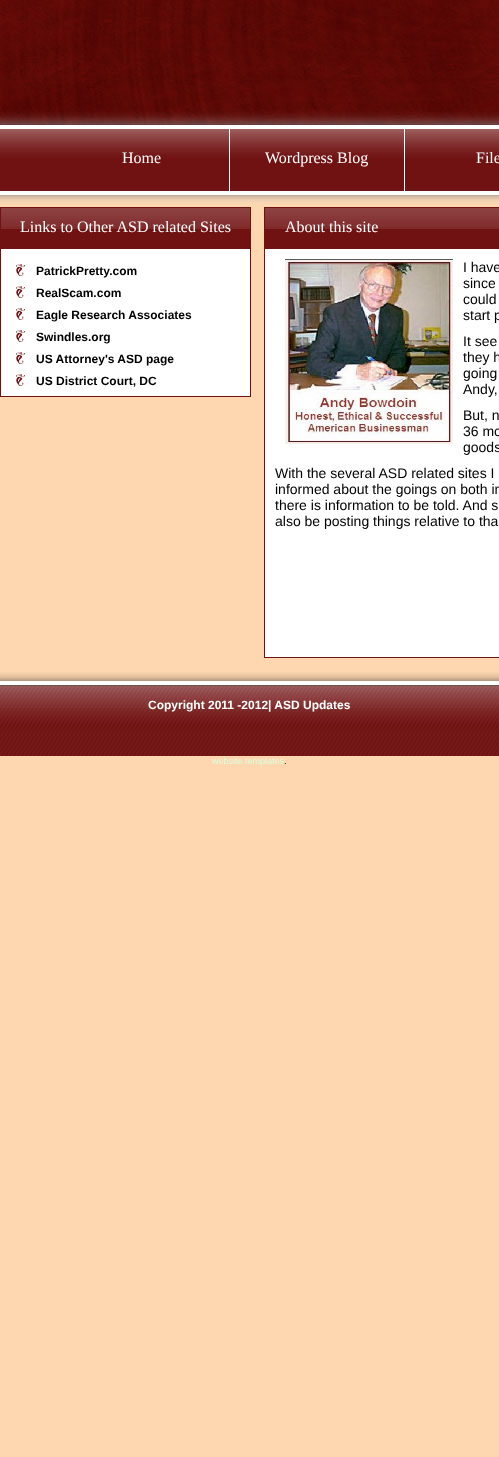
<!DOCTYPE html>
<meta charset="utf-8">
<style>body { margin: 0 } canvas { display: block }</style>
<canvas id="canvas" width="499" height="1457"></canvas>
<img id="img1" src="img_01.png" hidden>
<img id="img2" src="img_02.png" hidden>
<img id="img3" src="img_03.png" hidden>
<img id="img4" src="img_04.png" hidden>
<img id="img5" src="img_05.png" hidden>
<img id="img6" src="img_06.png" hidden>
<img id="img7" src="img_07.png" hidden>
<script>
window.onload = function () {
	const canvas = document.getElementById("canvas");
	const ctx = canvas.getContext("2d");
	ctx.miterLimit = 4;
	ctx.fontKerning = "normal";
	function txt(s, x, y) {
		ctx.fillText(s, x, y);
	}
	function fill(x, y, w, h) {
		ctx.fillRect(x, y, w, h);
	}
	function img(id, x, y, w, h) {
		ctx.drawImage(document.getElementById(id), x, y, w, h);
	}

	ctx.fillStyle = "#FED7B0";
	fill(0, 0, 499, 1457);
	img("img1", 0, 0, 499, 125);
	img("img2", 0, 125, 499, 79);
	ctx.fillStyle = "#FFFFFF";
	fill(229, 129, 1, 62);
	fill(404, 129, 1, 62);
	fill(1, 249, 249, 147);
	ctx.strokeStyle = "#701212";
	ctx.strokeRect(0.5, 207.5, 250, 189);
	img("img3", 1, 208, 249, 41);
	img("img4", 16, 264, 9, 12);
	img("img4", 16, 286, 9, 12);
	img("img4", 16, 308, 9, 12);
	img("img4", 16, 330, 9, 12);
	img("img4", 16, 352, 9, 12);
	img("img4", 16, 374, 9, 12);
	fill(265, 249, 234, 408);
	ctx.strokeRect(264.5, 207.5, 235, 450);
	img("img5", 265, 208, 234, 41);
	img("img6", 285, 259, 168, 185);
	img("img7", 0, 672, 499, 84);
	ctx.font = "16px Liberation Serif";
	txt("Home", 122, 163);
	txt("Wordpress Blog", 265, 163);
	txt("File", 476, 163);
	txt("Links to Other ASD related Sites", 20, 232);
	ctx.font = "bold 12px Liberation Sans";
	ctx.fillStyle = "#000000";
	txt("PatrickPretty.com", 36, 275);
	txt("RealScam.com", 36, 297);
	txt("Eagle Research Associates", 36, 319);
	txt("Swindles.org", 36, 341);
	txt("US Attorney's ASD page", 36, 363);
	txt("US District Court, DC", 36, 385);
	ctx.font = "16px Liberation Serif";
	ctx.fillStyle = "#FFFFFF";
	txt("About this site", 285, 232);
	ctx.font = "14px Liberation Sans";
	ctx.fillStyle = "#000000";
	txt("I have", 463, 272);
	txt("since", 463, 288);
	txt("could", 463, 304);
	txt("start p", 463, 320);
	txt("It see", 463, 346);
	txt("they h", 463, 362);
	txt("going", 463, 378);
	txt("Andy,", 463, 394);
	txt("But, n", 463, 420);
	txt("36 mo", 463, 436);
	txt("goods", 463, 452);
	txt("With the several ASD related sites I", 275, 478);
	txt("informed about the goings on both in", 275, 494);
	txt("there is information to be told. And s", 275, 510);
	txt("also be posting things relative to tha", 275, 526);
	ctx.font = "bold 12px Liberation Sans";
	ctx.fillStyle = "#FFFFFF";
	txt("Copyright 2011 -2012| ASD Updates", 148, 709);
	ctx.font = "9px Liberation Sans";
	ctx.fillStyle = "#D8FFDC";
	txt("website templates", 212, 764);
	ctx.fillStyle = "#000000";
	txt(".", 284, 764);
};
</script>
